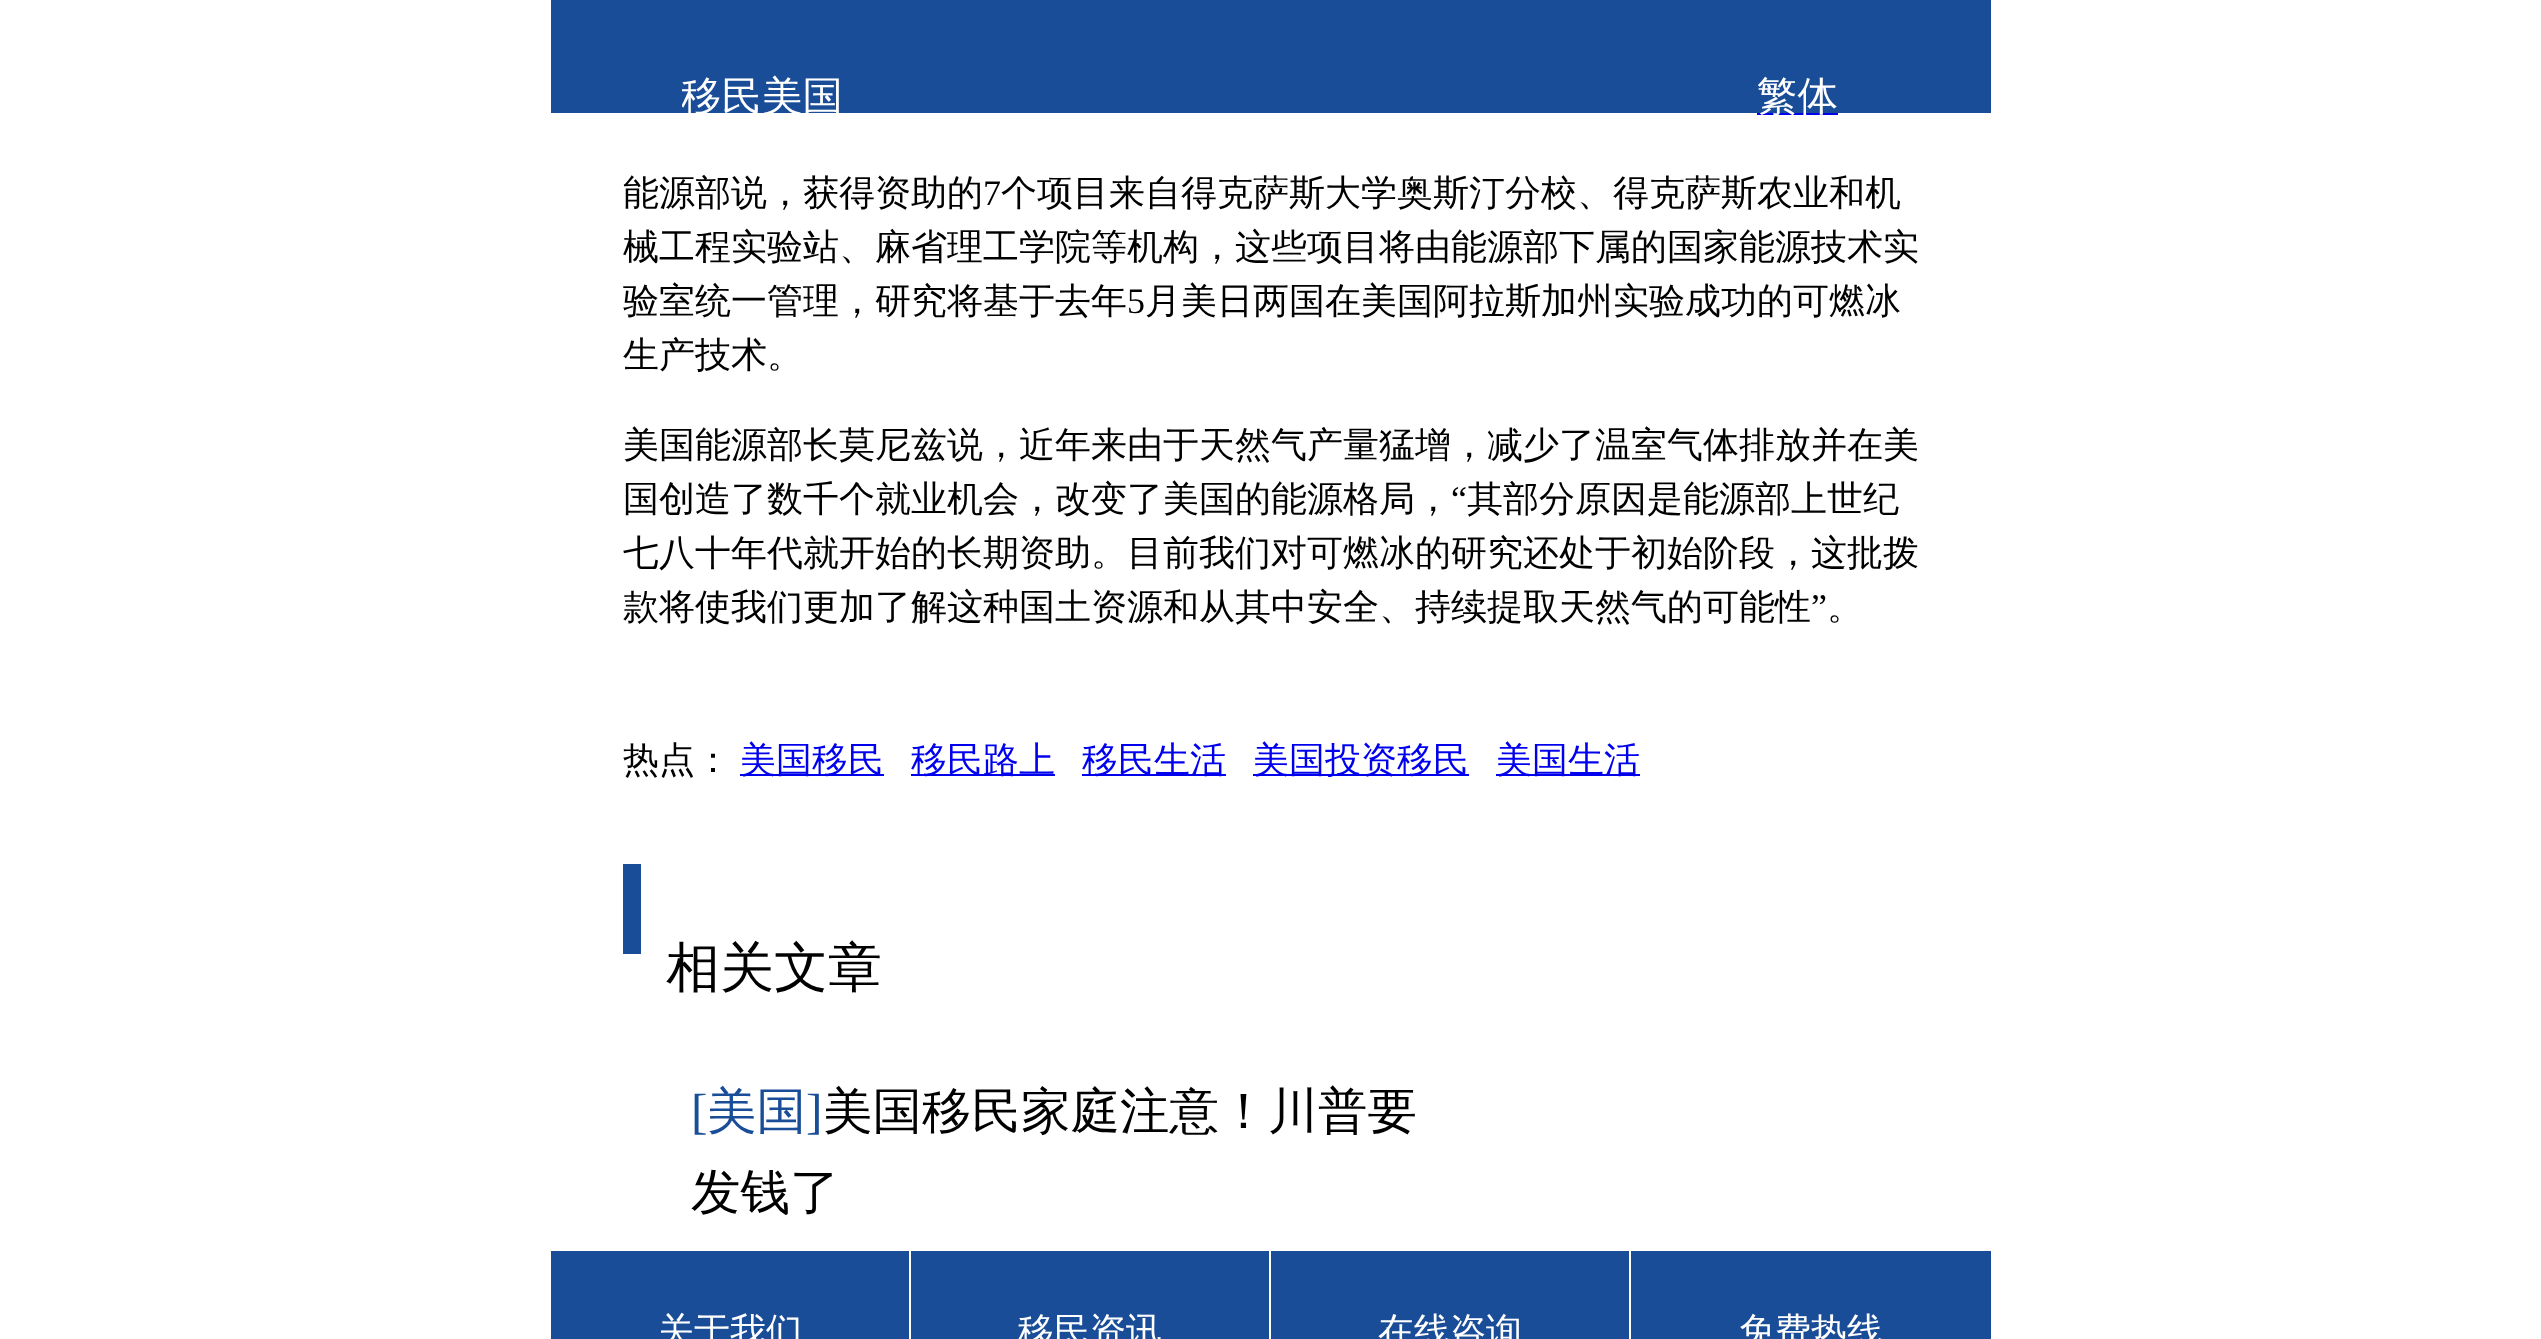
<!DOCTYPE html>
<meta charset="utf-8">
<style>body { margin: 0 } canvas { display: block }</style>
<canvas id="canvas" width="2541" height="1339"></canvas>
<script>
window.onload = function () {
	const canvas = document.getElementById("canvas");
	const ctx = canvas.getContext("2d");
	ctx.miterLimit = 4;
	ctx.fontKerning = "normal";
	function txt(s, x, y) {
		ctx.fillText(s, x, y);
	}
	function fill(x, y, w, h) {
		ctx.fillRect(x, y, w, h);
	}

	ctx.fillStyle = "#FFFFFF";
	fill(0, 0, 2541, 1339);
	ctx.fillStyle = "#1A4D97";
	fill(551, 0, 1440, 113);
	ctx.fillStyle = "#0000EE";
	fill(1757, 113, 81, 2);
	fill(740, 774, 144, 2);
	fill(911, 774, 144, 2);
	fill(1082, 774, 144, 2);
	fill(1253, 774, 216, 2);
	fill(1496, 774, 144, 2);
	ctx.fillStyle = "#1A4D97";
	fill(623, 864, 18, 90);
	fill(551, 1251, 358, 88);
	fill(911, 1251, 358, 88);
	fill(1271, 1251, 358, 88);
	fill(1631, 1251, 360, 88);
	ctx.save();
	ctx.beginPath();
	ctx.rect(682, 41, 1152, 112);
	ctx.clip();
	ctx.font = "500 40.5px WenQuanYi Zen Hei";
	ctx.fillStyle = "#FFFFFF";
	txt("移民美国", 681, 110);
	ctx.restore();
	ctx.font = "500 40.5px WenQuanYi Zen Hei";
	ctx.fillStyle = "#FFFFFF";
	txt("繁体", 1757, 110);
	ctx.font = "500 36px WenQuanYi Zen Hei";
	ctx.fillStyle = "#000000";
	txt("能源部说，获得资助的", 623, 205);
	ctx.font = "36px Liberation Serif";
	txt("7", 983, 205);
	ctx.font = "500 36px WenQuanYi Zen Hei";
	txt("个项目来自得克萨斯大学奥斯汀分校、得克萨斯农业和机", 1001, 205);
	txt("械工程实验站、麻省理工学院等机构，这些项目将由能源部下属的国家能源技术实", 623, 259);
	txt("验室统一管理，研究将基于去年", 623, 313);
	ctx.font = "36px Liberation Serif";
	txt("5", 1127, 313);
	ctx.font = "500 36px WenQuanYi Zen Hei";
	txt("月美日两国在美国阿拉斯加州实验成功的可燃冰", 1145, 313);
	txt("生产技术。", 623, 367);
	txt("美国能源部长莫尼兹说，近年来由于天然气产量猛增，减少了温室气体排放并在美", 623, 457);
	txt("国创造了数千个就业机会，改变了美国的能源格局，", 623, 511);
	ctx.font = "36px Liberation Serif";
	txt("“", 1451, 511);
	ctx.font = "500 36px WenQuanYi Zen Hei";
	txt("其部分原因是能源部上世纪", 1467, 511);
	txt("七八十年代就开始的长期资助。目前我们对可燃冰的研究还处于初始阶段，这批拨", 623, 565);
	txt("款将使我们更加了解这种国土资源和从其中安全、持续提取天然气的可能性", 623, 619);
	ctx.font = "36px Liberation Serif";
	txt("”", 1811, 619);
	ctx.font = "500 36px WenQuanYi Zen Hei";
	txt("。", 1827, 619);
	txt("热点：", 623, 772);
	ctx.fillStyle = "#0000EE";
	txt("美国移民", 740, 772);
	txt("移民路上", 911, 772);
	txt("移民生活", 1082, 772);
	txt("美国投资移民", 1253, 772);
	txt("美国生活", 1496, 772);
	ctx.font = "500 54px WenQuanYi Zen Hei";
	ctx.fillStyle = "#000000";
	txt("相关文章", 666, 986);
	ctx.font = "49.5px Liberation Serif";
	ctx.fillStyle = "#1A4D97";
	txt("[", 691, 1128);
	ctx.font = "500 49.5px WenQuanYi Zen Hei";
	txt("美国", 707, 1128);
	ctx.font = "49.5px Liberation Serif";
	txt("]", 806, 1128);
	ctx.font = "500 49.5px WenQuanYi Zen Hei";
	ctx.fillStyle = "#000000";
	txt("美国移民家庭注意！川普要", 823, 1128);
	txt("发钱了", 691, 1209);
	ctx.font = "500 36px WenQuanYi Zen Hei";
	ctx.fillStyle = "#FFFFFF";
	txt("关于我们", 658, 1343);
	txt("移民资讯", 1018, 1343);
	txt("在线咨询", 1378, 1343);
	txt("免费热线", 1739, 1343);
};
</script>
